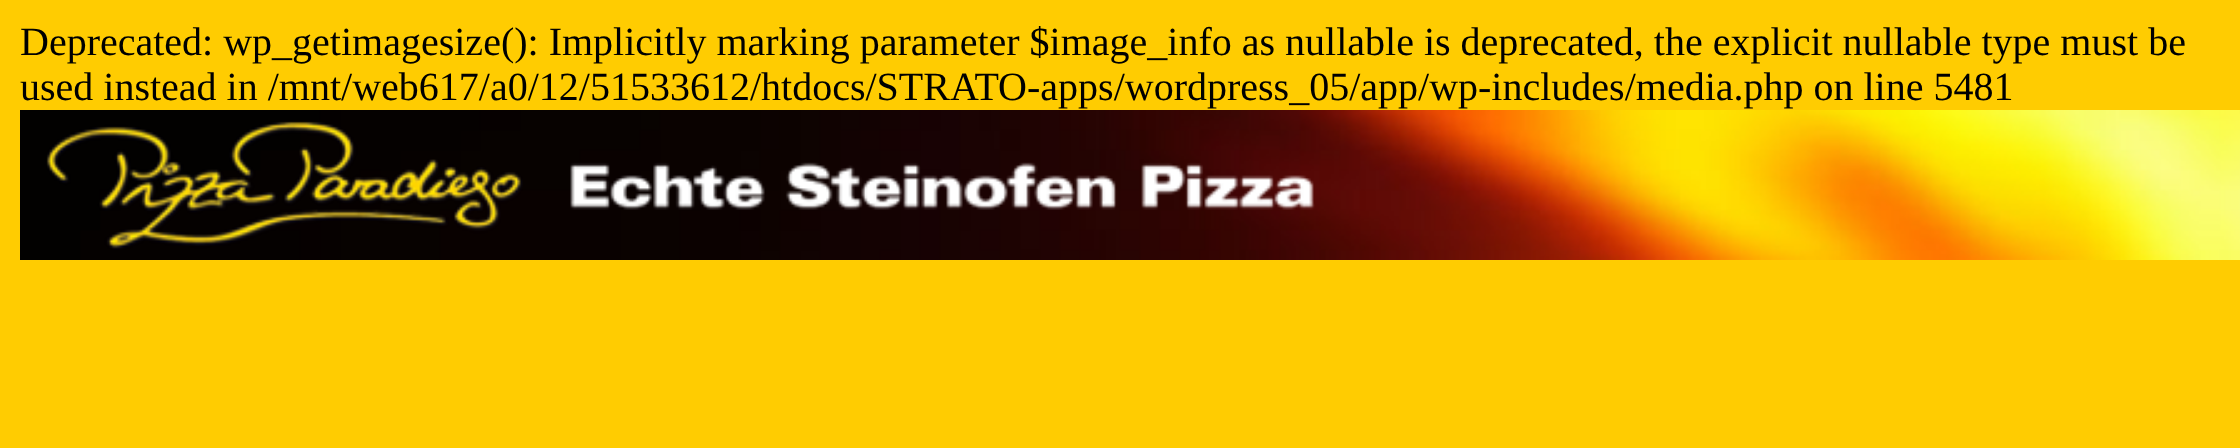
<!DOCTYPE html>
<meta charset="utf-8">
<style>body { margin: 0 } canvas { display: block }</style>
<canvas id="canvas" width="2240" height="448"></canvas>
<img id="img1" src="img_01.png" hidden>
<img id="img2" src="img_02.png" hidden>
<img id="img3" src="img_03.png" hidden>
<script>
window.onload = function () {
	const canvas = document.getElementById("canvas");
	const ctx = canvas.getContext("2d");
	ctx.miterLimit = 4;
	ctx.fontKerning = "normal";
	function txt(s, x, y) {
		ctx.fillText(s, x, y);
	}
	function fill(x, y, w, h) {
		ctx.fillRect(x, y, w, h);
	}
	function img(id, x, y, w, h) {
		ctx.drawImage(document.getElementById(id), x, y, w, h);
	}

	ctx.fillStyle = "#FFCC01";
	fill(0, 0, 2240, 448);
	img("img1", 20, 110, 2220, 150);
	img("img2", 46, 121, 477, 129);
	img("img3", 570, 162, 745, 48);
	ctx.font = "40px Liberation Serif";
	ctx.fillStyle = "#000000";
	txt("Deprecated: wp_getimagesize(): Implicitly marking parameter $image_info as nullable is deprecated, the explicit nullable type must be", 20, 55);
	txt("used instead in /mnt/web617/a0/12/51533612/htdocs/STRATO-apps/wordpress_05/app/wp-includes/media.php on line 5481", 20, 100);
};
</script>
